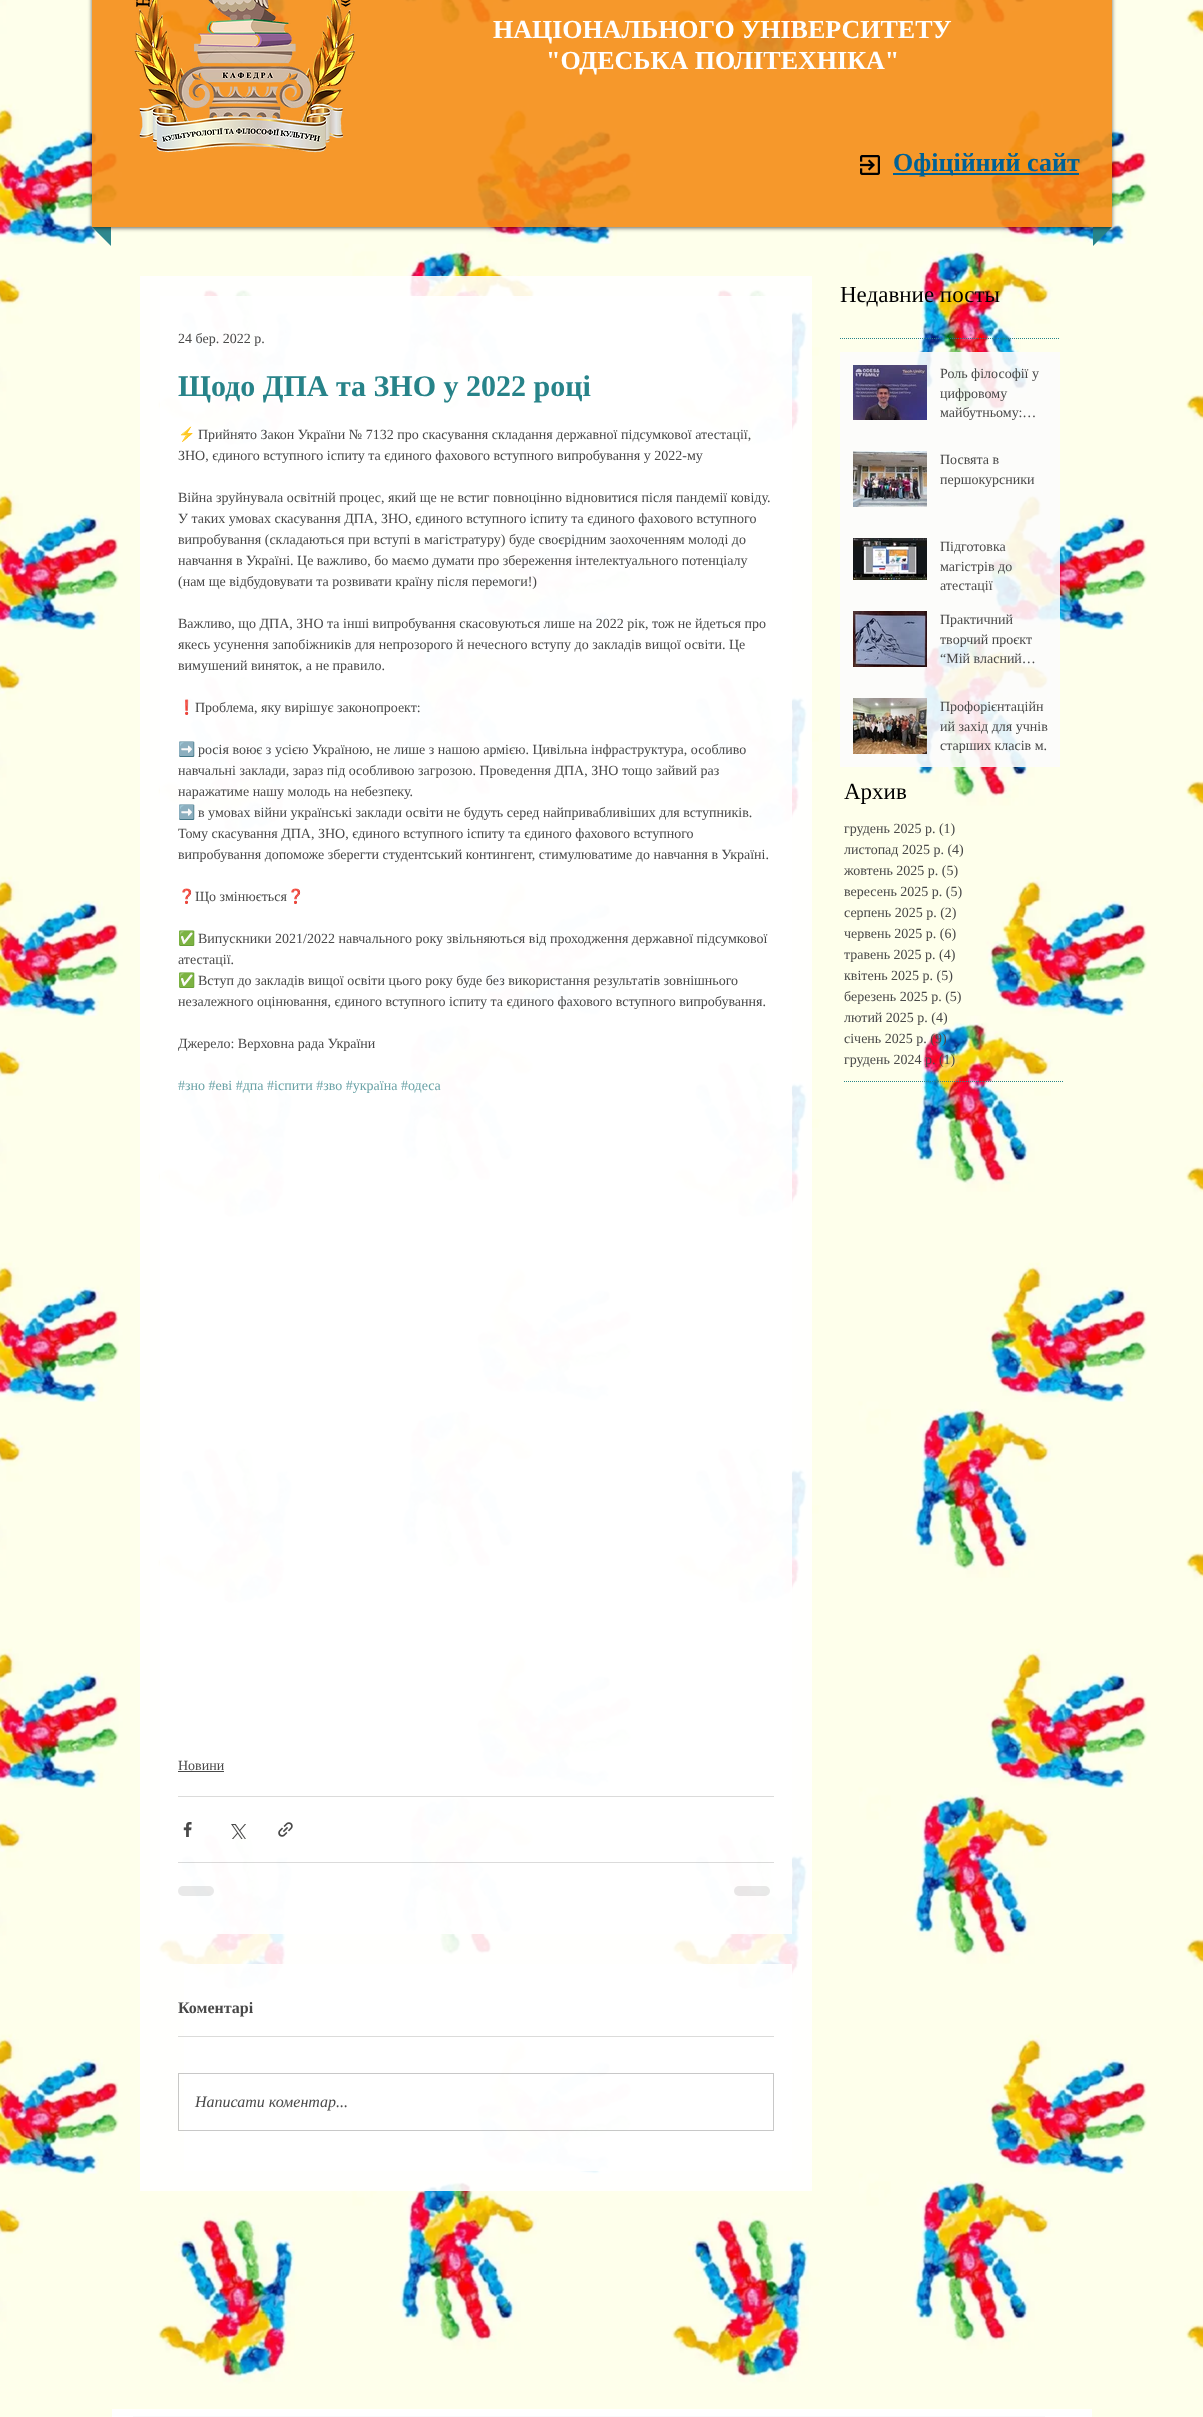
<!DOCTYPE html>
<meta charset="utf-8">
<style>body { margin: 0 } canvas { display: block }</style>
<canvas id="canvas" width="1203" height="2417"></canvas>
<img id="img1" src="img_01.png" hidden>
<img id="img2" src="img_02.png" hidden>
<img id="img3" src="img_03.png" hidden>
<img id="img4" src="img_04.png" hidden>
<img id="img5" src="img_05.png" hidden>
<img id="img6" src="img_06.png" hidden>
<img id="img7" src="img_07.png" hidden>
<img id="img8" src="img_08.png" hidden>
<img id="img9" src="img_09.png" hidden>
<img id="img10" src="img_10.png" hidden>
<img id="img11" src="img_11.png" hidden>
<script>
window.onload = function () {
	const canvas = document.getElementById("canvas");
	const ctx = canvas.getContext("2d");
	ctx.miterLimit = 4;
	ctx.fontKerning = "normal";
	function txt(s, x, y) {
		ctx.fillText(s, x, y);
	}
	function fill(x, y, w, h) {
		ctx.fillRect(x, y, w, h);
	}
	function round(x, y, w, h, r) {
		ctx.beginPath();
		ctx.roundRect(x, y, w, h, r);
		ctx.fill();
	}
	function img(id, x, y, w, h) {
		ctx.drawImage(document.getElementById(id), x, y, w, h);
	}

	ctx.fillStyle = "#FFFFFF";
	fill(0, 0, 1203, 2417);
	img("img1", 0, 0, 1203, 2417);
	ctx.fillStyle = "rgba(39, 131, 137, 0.96)";
	ctx.beginPath();
	ctx.moveTo(92, 227);
	ctx.lineTo(111, 227);
	ctx.lineTo(111, 246);
	ctx.closePath();
	ctx.fill();
	ctx.fillStyle = "#278389";
	ctx.beginPath();
	ctx.moveTo(1093, 227);
	ctx.lineTo(1112, 227);
	ctx.lineTo(1093, 246);
	ctx.closePath();
	ctx.fill();
	ctx.save();
	ctx.beginPath();
	ctx.moveTo(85, 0);
	ctx.lineTo(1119, 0);
	ctx.lineTo(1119, 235);
	ctx.lineTo(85, 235);
	ctx.closePath();
	ctx.moveTo(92, -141);
	ctx.lineTo(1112, -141);
	ctx.lineTo(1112, 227);
	ctx.lineTo(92, 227);
	ctx.closePath();
	ctx.clip("evenodd");
	ctx.fillStyle = "rgba(0, 0, 0, 0.6)";
	ctx.filter = "blur(2px)";
	ctx.beginPath();
	ctx.rect(92, -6, 1020, 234);
	ctx.fill();
	ctx.filter = "none";
	ctx.restore();
	ctx.fillStyle = "rgba(245, 141, 22, 0.9)";
	fill(92, 0, 1020, 227);
	img("img2", 134, 0, 222, 153);
	img("img3", 860, 155, 20, 20);
	ctx.fillStyle = "#006296";
	fill(893, 173, 186, 2);
	ctx.fillStyle = "rgba(255, 255, 255, 0.89)";
	fill(140, 276, 672, 1915);
	fill(160, 296, 632, 1638);
	ctx.fillStyle = "#494949";
	fill(178, 1771, 46, 1);
	ctx.fillStyle = "#DBDBDA";
	fill(178, 1796, 596, 1);
	img("img4", 183, 1822, 9, 15);
	img("img5", 231, 1824, 15, 15);
	img("img6", 278, 1822, 15, 15);
	ctx.fillStyle = "rgba(73, 73, 73, 0.2)";
	fill(178, 1862, 596, 1);
	ctx.fillStyle = "rgba(73, 73, 73, 0.12)";
	round(178, 1886, 36, 10, 5);
	round(734, 1886, 36, 10, 5);
	ctx.fillStyle = "rgba(255, 255, 255, 0.89)";
	fill(184, 1964, 608, 207);
	ctx.fillStyle = "#DBDBDA";
	fill(178, 2036, 596, 1);
	ctx.strokeStyle = "rgba(73, 73, 73, 0.3)";
	ctx.strokeRect(178.5, 2073.5, 595, 57);
	ctx.beginPath();
	ctx.moveTo(840, 338.5);
	ctx.lineTo(1060, 338.5);
	ctx.strokeStyle = "#278389";
	ctx.setLineDash([1, 1]);
	ctx.stroke();
	ctx.fillStyle = "rgba(252, 252, 252, 0.9)";
	fill(840, 352, 220, 415);
	img("img7", 853, 365, 74, 55);
	img("img8", 853, 451, 74, 56);
	img("img9", 853, 538, 74, 42);
	img("img10", 853, 611, 74, 56);
	img("img11", 853, 698, 74, 56);
	ctx.beginPath();
	ctx.moveTo(844, 1081.5);
	ctx.lineTo(1064, 1081.5);
	ctx.stroke();
	ctx.fillStyle = "#FFFFFF";
	fill(112, 2409, 980, 8);
	ctx.fillStyle = "#FAFAFA";
	fill(133, 2416, 912, 1);
	ctx.font = "bold 26px Liberation Serif";
	ctx.fillStyle = "#FFFFFF";
	txt("НАЦІОНАЛЬНОГО УНІВЕРСИТЕТУ", 493, 38);
	txt("\"ОДЕСЬКА ПОЛІТЕХНІКА\"", 546, 69);
	ctx.fillStyle = "#006296";
	txt("Офіційний сайт", 893, 171);
	ctx.font = "23px Liberation Serif";
	ctx.fillStyle = "#000000";
	txt("Недавние посты", 840, 302);
	ctx.font = "14px Liberation Serif";
	ctx.fillStyle = "#494949";
	txt("24 бер. 2022 р.", 178, 343);
	ctx.font = "bold 30px Liberation Serif";
	ctx.fillStyle = "#278389";
	txt("Щодо ДПА та ЗНО у 2022 році", 178, 396);
	ctx.font = "14px Noto Color Emoji";
	ctx.fillStyle = "#494949";
	txt("⚡️", 178, 439);
	ctx.font = "14px Liberation Serif";
	txt("Прийнято Закон України № 7132 про скасування складання державної підсумкової атестації,", 198, 439);
	txt("ЗНО, єдиного вступного іспиту та єдиного фахового вступного випробування у 2022-му", 178, 460);
	txt("Війна зруйнувала освітній процес, який ще не встиг повноцінно відновитися після пандемії ковіду.", 178, 502);
	txt("У таких умовах скасування ДПА, ЗНО, єдиного вступного іспиту та єдиного фахового вступного", 178, 523);
	txt("випробування (складаються при вступі в магістратуру) буде своєрідним заохоченням молоді до", 178, 544);
	txt("навчання в Україні. Це важливо, бо маємо думати про збереження інтелектуального потенціалу", 178, 565);
	txt("(нам ще відбудовувати та розвивати країну після перемоги!)", 178, 586);
	txt("Важливо, що ДПА, ЗНО та інші випробування скасовуються лише на 2022 рік, тож не йдеться про", 178, 628);
	txt("якесь усунення запобіжників для непрозорого й нечесного вступу до закладів вищої освіти. Це", 178, 649);
	txt("вимушений виняток, а не правило.", 178, 670);
	ctx.font = "14px Noto Color Emoji";
	txt("❗️", 178, 712);
	ctx.font = "14px Liberation Serif";
	txt("Проблема, яку вирішує законопроект:", 195, 712);
	ctx.font = "14px Noto Color Emoji";
	txt("➡️", 178, 754);
	ctx.font = "14px Liberation Serif";
	txt("росія воює з усією Україною, не лише з нашою армією. Цивільна інфраструктура, особливо", 198, 754);
	txt("навчальні заклади, зараз під особливою загрозою. Проведення ДПА, ЗНО тощо зайвий раз", 178, 775);
	txt("наражатиме нашу молодь на небезпеку.", 178, 796);
	ctx.font = "14px Noto Color Emoji";
	txt("➡️", 178, 817);
	ctx.font = "14px Liberation Serif";
	txt("в умовах війни українські заклади освіти не будуть серед найпривабливіших для вступників.", 198, 817);
	txt("Тому скасування ДПА, ЗНО, єдиного вступного іспиту та єдиного фахового вступного", 178, 838);
	txt("випробування допоможе зберегти студентський контингент, стимулюватиме до навчання в Україні.", 178, 859);
	ctx.font = "14px Noto Color Emoji";
	txt("❓", 178, 901);
	ctx.font = "14px Liberation Serif";
	txt("Що змінюється", 195, 901);
	ctx.font = "14px Noto Color Emoji";
	txt("❓", 287, 901);
	txt("✅", 178, 943);
	ctx.font = "14px Liberation Serif";
	txt("Випускники 2021/2022 навчального року звільняються від проходження державної підсумкової", 198, 943);
	txt("атестації.", 178, 964);
	ctx.font = "14px Noto Color Emoji";
	txt("✅", 178, 985);
	ctx.font = "14px Liberation Serif";
	txt("Вступ до закладів вищої освіти цього року буде без використання результатів зовнішнього", 198, 985);
	txt("незалежного оцінювання, єдиного вступного іспиту та єдиного фахового вступного випробування.", 178, 1006);
	txt("Джерело: Верховна рада України", 178, 1048);
	ctx.fillStyle = "#6BA3A7";
	txt("#зно #еві #дпа #іспити #зво #україна #одеса", 178, 1090);
	ctx.fillStyle = "#494949";
	txt("Новини", 178, 1770);
	ctx.font = "bold 16px Liberation Serif";
	txt("Коментарі", 178, 2013);
	ctx.font = "italic 16px Liberation Serif";
	txt("Написати коментар...", 195, 2107);
	ctx.font = "14px Liberation Serif";
	txt("Роль філософії у", 940, 378);
	txt("цифровому", 940, 398);
	txt("майбутньому:…", 940, 417);
	txt("Посвята в", 940, 464);
	txt("першокурсники", 940, 484);
	txt("Підготовка", 940, 551);
	txt("магістрів до", 940, 571);
	txt("атестації", 940, 590);
	txt("Практичний", 940, 624);
	ctx.save();
	ctx.beginPath();
	ctx.rect(940, 610, 108, 59);
	ctx.clip();
	txt("творчий проєкт", 940, 644);
	ctx.restore();
	txt("“Мій власний…", 940, 663);
	txt("Профорієнтаційн", 940, 711);
	txt("ий захід для учнів", 940, 731);
	txt("старших класів м.", 940, 750);
	ctx.font = "23px Liberation Serif";
	ctx.fillStyle = "#000000";
	txt("Архив", 844, 799);
	ctx.font = "14px Liberation Serif";
	ctx.fillStyle = "#494949";
	txt("грудень 2025 р. (1)", 844, 833);
	txt("листопад 2025 р. (4)", 844, 854);
	txt("жовтень 2025 р. (5)", 844, 875);
	txt("вересень 2025 р. (5)", 844, 896);
	txt("серпень 2025 р. (2)", 844, 917);
	txt("червень 2025 р. (6)", 844, 938);
	ctx.save();
	ctx.beginPath();
	ctx.rect(844, 944, 111, 21);
	ctx.clip();
	txt("травень 2025 р.", 844, 959);
	ctx.restore();
	txt("(4)", 939, 959);
	txt("квітень 2025 р. (5)", 844, 980);
	txt("березень 2025 р. (5)", 844, 1001);
	txt("лютий 2025 р. (4)", 844, 1022);
	txt("січень 2025 р. (9)", 844, 1043);
	txt("грудень 2024 р. (1)", 844, 1064);
};
</script>
